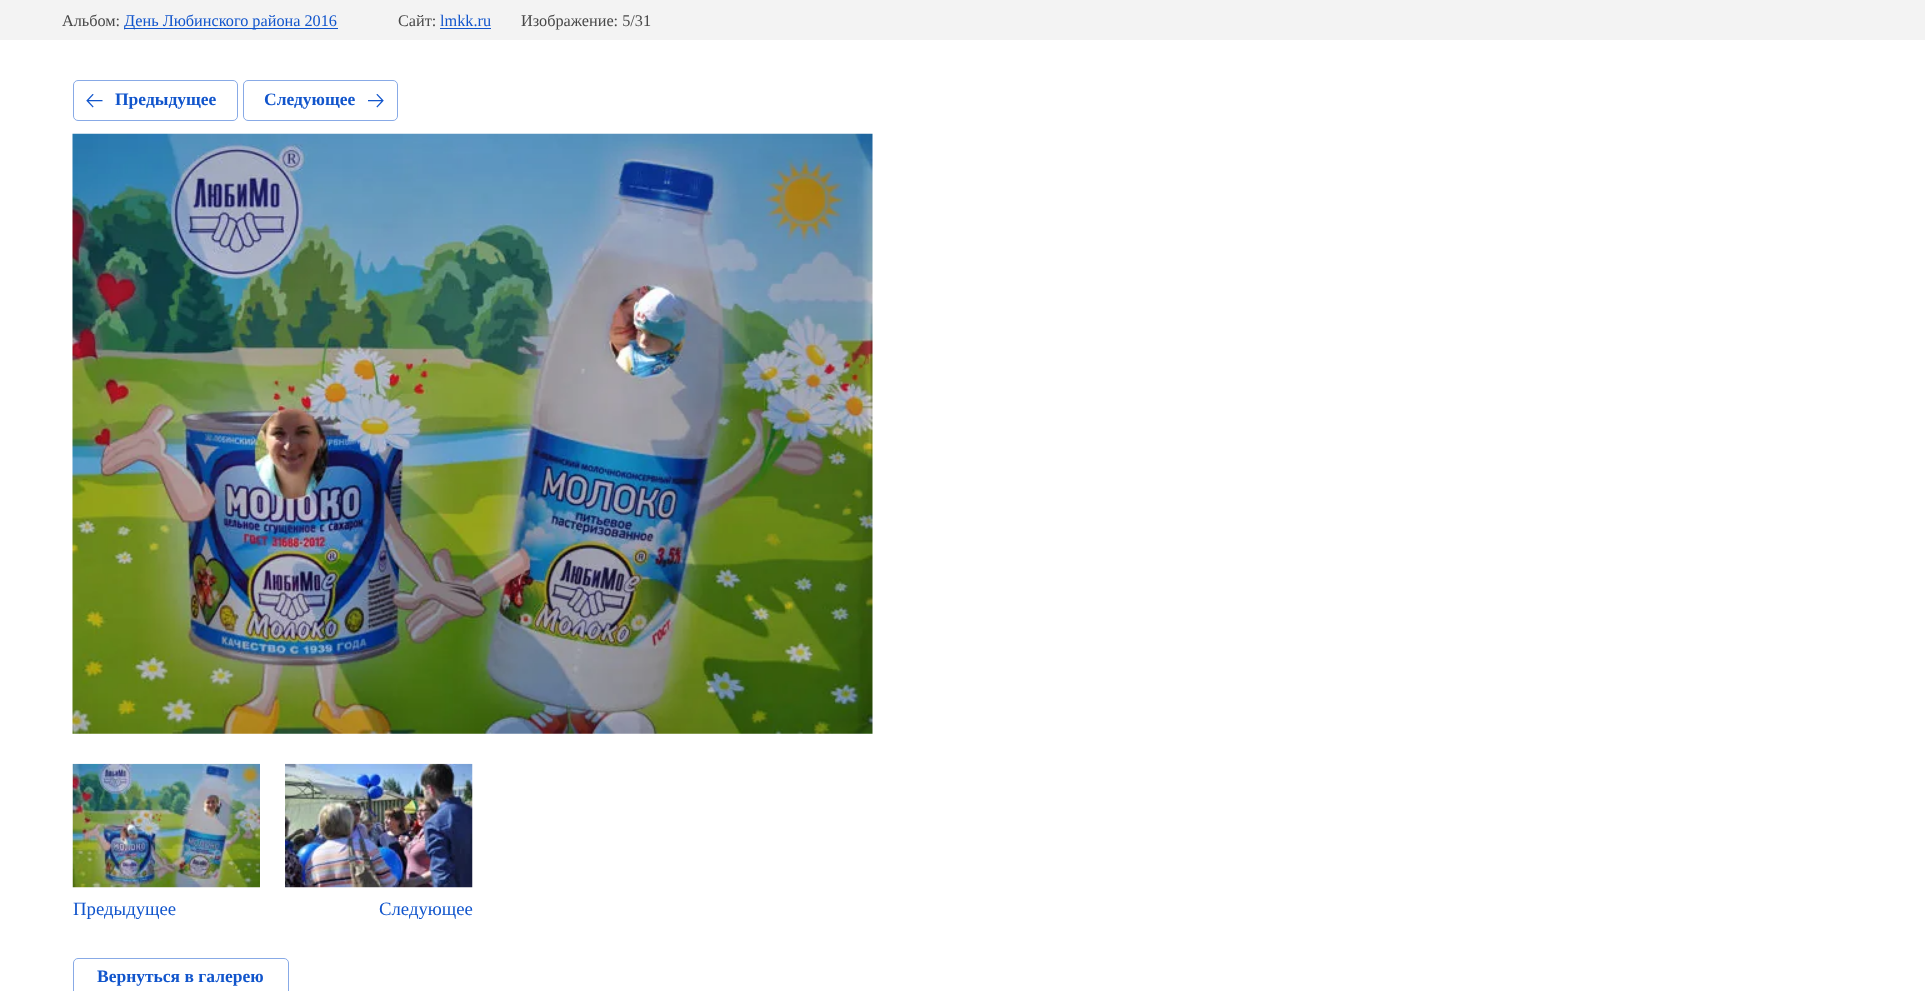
<!DOCTYPE html>
<meta charset="utf-8">
<style>body { margin: 0 } canvas { display: block }</style>
<canvas id="canvas" width="1925" height="991"></canvas>
<img id="img1" src="img_01.png" hidden>
<img id="img2" src="img_02.png" hidden>
<img id="img3" src="img_03.png" hidden>
<img id="img4" src="img_04.png" hidden>
<img id="img5" src="img_05.png" hidden>
<script>
window.onload = function () {
	const canvas = document.getElementById("canvas");
	const ctx = canvas.getContext("2d");
	ctx.miterLimit = 4;
	ctx.fontKerning = "normal";
	function txt(s, x, y) {
		ctx.fillText(s, x, y);
	}
	function fill(x, y, w, h) {
		ctx.fillRect(x, y, w, h);
	}
	function img(id, x, y, w, h) {
		ctx.drawImage(document.getElementById(id), x, y, w, h);
	}

	ctx.fillStyle = "#FFFFFF";
	fill(0, 0, 1925, 991);
	ctx.fillStyle = "#F3F3F3";
	fill(0, 0, 1925, 40);
	ctx.fillStyle = "#1155CC";
	fill(124, 28, 214, 1);
	fill(440, 28, 51, 1);
	ctx.beginPath();
	ctx.roundRect(73.5, 80.5, 164, 40, 4.5);
	ctx.strokeStyle = "#88AAE6";
	ctx.stroke();
	img("img1", 86, 94, 17, 14);
	ctx.beginPath();
	ctx.roundRect(243.5, 80.5, 154, 40, 4.5);
	ctx.stroke();
	img("img2", 368, 94, 16, 14);
	img("img3", 72, 133, 801, 601);
	img("img4", 72, 763, 188, 125);
	img("img5", 285, 763, 188, 125);
	ctx.beginPath();
	ctx.roundRect(73.5, 958.5, 215, 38, 4.5);
	ctx.stroke();
	ctx.font = "16.25px Liberation Serif";
	ctx.fillStyle = "#484848";
	txt("Альбом:", 62, 26);
	ctx.fillStyle = "#1155CC";
	txt("День Любинского района 2016", 124, 26);
	ctx.fillStyle = "#484848";
	txt("Сайт:", 398, 26);
	ctx.fillStyle = "#1155CC";
	txt("lmkk.ru", 440, 26);
	ctx.fillStyle = "#484848";
	txt("Изображение: 5/31", 521, 26);
	ctx.font = "bold 17.5px Liberation Serif";
	ctx.fillStyle = "#1155CC";
	txt("Предыдущее", 115, 105);
	txt("Следующее", 264, 105);
	ctx.font = "18.75px Liberation Serif";
	txt("Предыдущее", 73, 915);
	txt("Следующее", 379, 915);
	ctx.font = "bold 17.5px Liberation Serif";
	txt("Вернуться в галерею", 97, 982);
};
</script>
